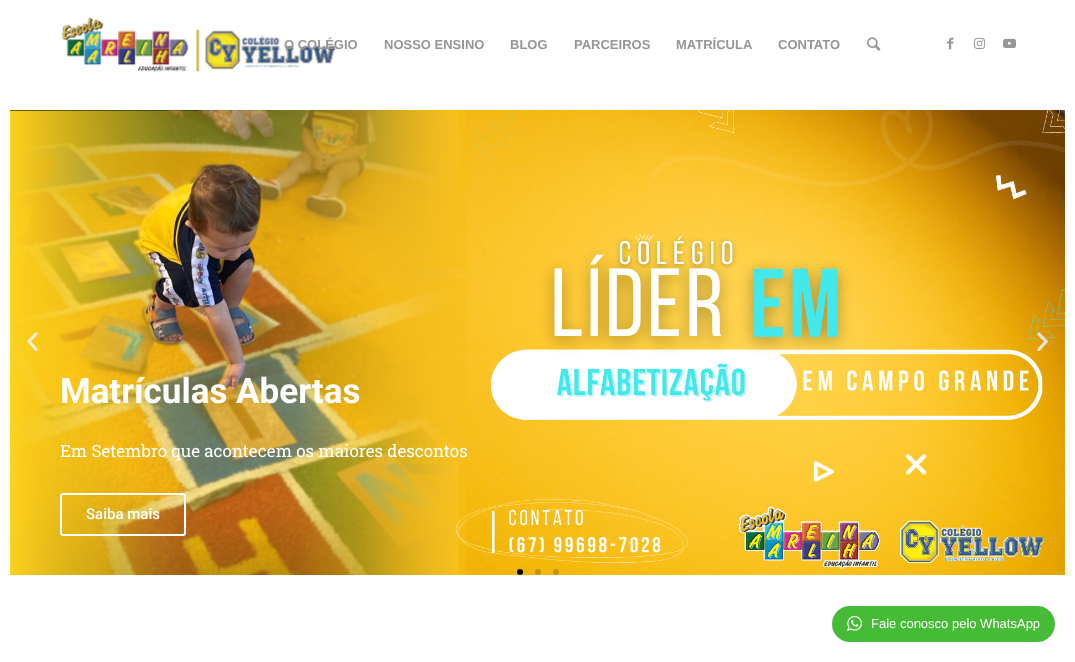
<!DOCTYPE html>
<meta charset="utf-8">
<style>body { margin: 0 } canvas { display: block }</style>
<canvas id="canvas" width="1075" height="662"></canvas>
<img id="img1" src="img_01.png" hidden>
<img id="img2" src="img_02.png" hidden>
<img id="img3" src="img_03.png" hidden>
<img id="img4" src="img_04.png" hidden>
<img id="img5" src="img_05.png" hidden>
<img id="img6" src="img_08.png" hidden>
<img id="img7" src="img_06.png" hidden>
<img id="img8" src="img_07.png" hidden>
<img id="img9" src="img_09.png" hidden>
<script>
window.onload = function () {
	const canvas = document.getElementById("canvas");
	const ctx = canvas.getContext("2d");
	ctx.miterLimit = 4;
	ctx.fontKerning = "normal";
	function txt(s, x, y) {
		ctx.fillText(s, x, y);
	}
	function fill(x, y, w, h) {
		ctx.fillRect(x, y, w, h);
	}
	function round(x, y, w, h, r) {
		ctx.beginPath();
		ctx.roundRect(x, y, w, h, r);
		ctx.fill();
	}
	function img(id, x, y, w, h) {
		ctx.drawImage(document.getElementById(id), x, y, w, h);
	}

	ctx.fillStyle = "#FFFFFF";
	fill(0, 0, 1075, 662);
	img("img1", 61, 17, 275, 56);
	img("img2", 867, 37, 14, 14);
	img("img3", 947, 37, 7, 13);
	img("img4", 974, 37, 12, 12);
	img("img5", 1003, 38, 13, 10);
	img("img6", 10, 110, 1055, 465);
	img("img7", 27, 332, 11, 20);
	img("img8", 1037, 332, 11, 20);
	ctx.beginPath();
	ctx.roundRect(61, 494, 124, 41, 2);
	ctx.strokeStyle = "#FFFFFF";
	ctx.lineWidth = 2;
	ctx.stroke();
	ctx.fillStyle = "#000000";
	ctx.beginPath();
	ctx.arc(520, 572, 3, 0, Math.PI * 2);
	ctx.fill();
	ctx.fillStyle = "rgba(0, 0, 0, 0.2)";
	ctx.beginPath();
	ctx.arc(538, 572, 3, 0, Math.PI * 2);
	ctx.fill();
	ctx.beginPath();
	ctx.arc(556, 572, 3, 0, Math.PI * 2);
	ctx.fill();
	ctx.fillStyle = "#46BB36";
	round(832, 606, 223, 36, 18);
	img("img9", 847, 616, 15, 15);
	ctx.font = "bold 13px Liberation Sans";
	ctx.fillStyle = "#969696";
	txt("O COLÉGIO", 284, 49);
	txt("NOSSO ENSINO", 384, 49);
	txt("BLOG", 510, 49);
	txt("PARCEIROS", 574, 49);
	txt("MATRÍCULA", 676, 49);
	txt("CONTATO", 778, 49);
	ctx.font = "bold 35px Roboto";
	ctx.fillStyle = "#FFFFFF";
	txt("Matrículas Abertas", 60, 403);
	ctx.font = "17px Roboto Slab";
	txt("Em Setembro que acontecem os maiores descontos", 60, 457);
	ctx.font = "500 15px Roboto";
	txt("Saiba mais", 86, 519);
	ctx.font = "13px Liberation Sans";
	txt("Fale conosco pelo WhatsApp", 871, 628);
};
</script>
